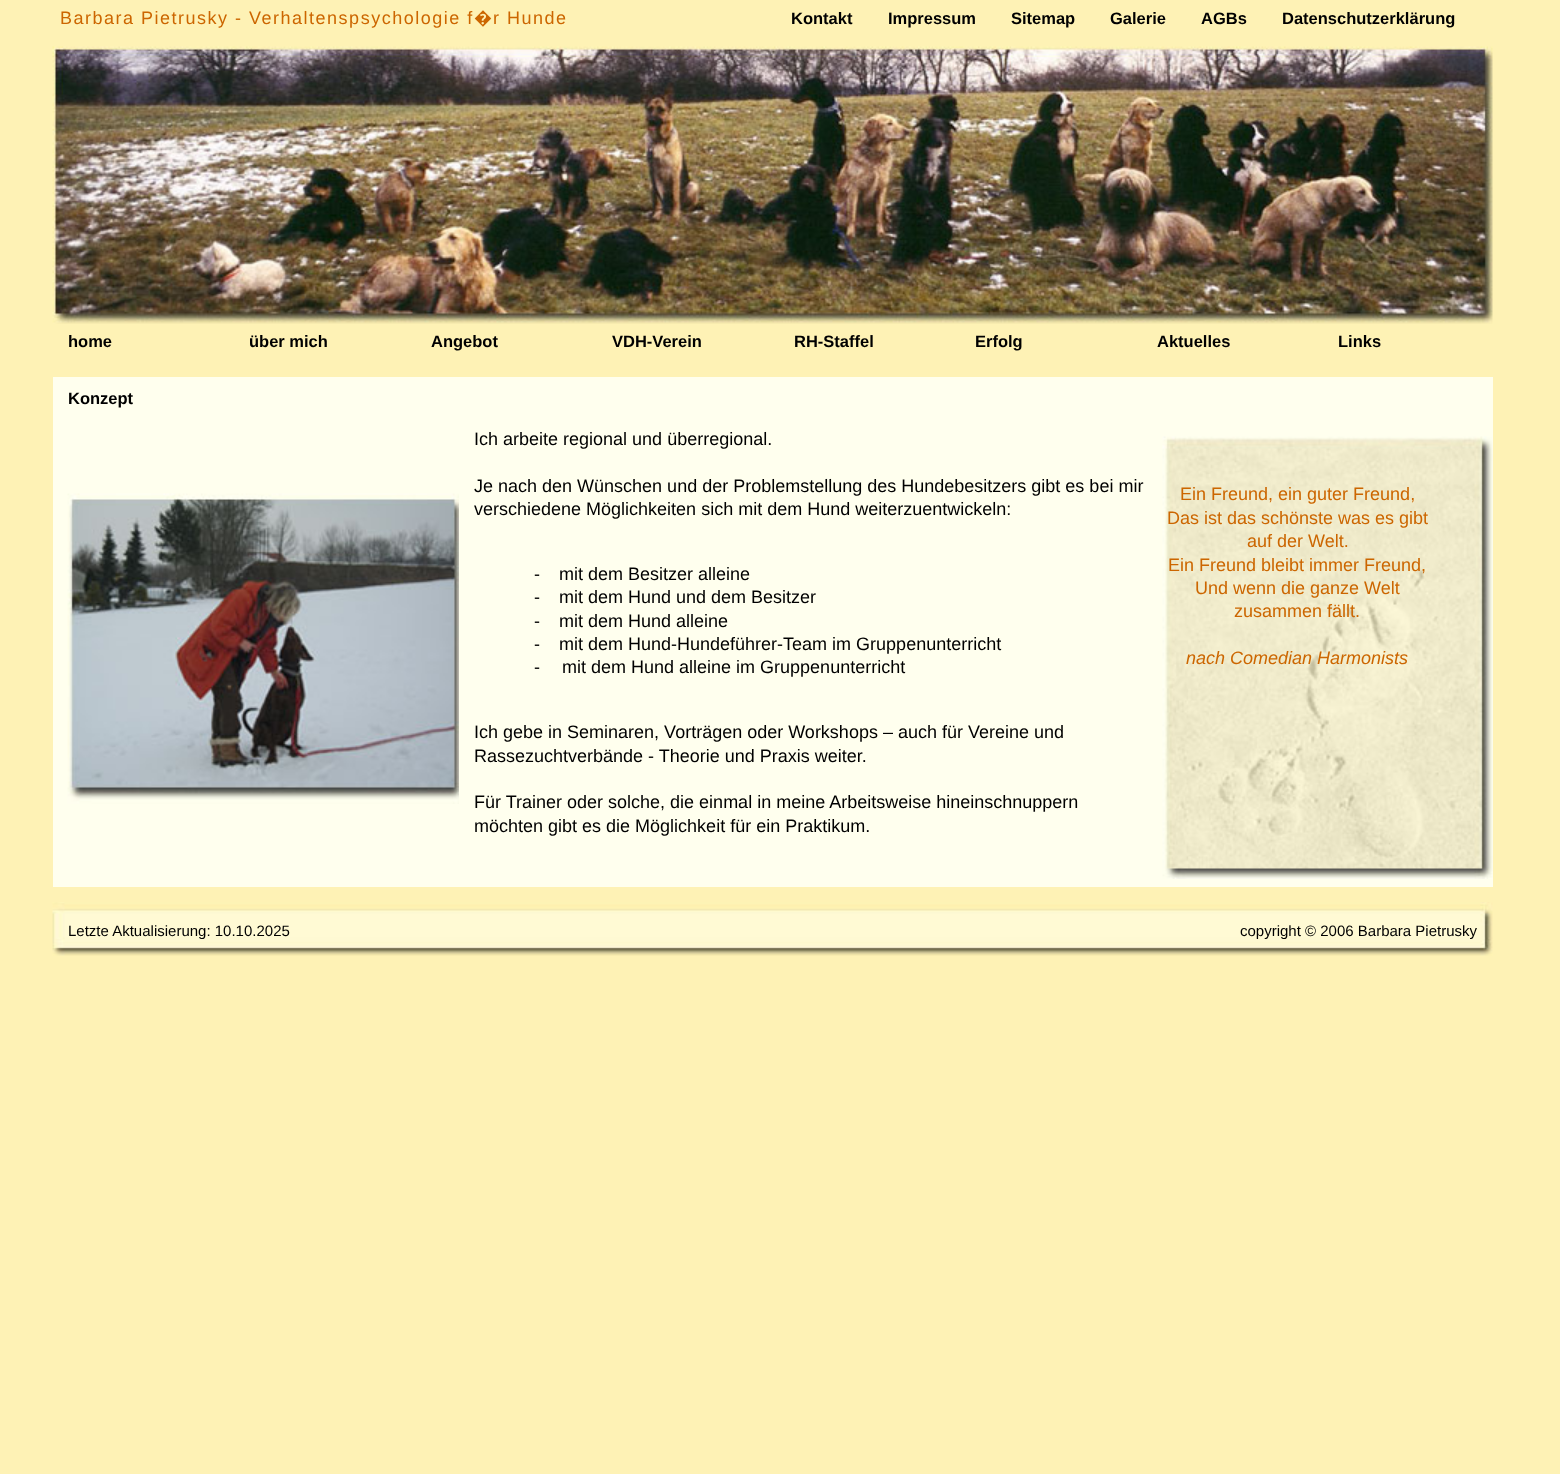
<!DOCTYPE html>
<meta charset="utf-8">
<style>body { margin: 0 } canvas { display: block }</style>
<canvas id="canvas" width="1560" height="1474"></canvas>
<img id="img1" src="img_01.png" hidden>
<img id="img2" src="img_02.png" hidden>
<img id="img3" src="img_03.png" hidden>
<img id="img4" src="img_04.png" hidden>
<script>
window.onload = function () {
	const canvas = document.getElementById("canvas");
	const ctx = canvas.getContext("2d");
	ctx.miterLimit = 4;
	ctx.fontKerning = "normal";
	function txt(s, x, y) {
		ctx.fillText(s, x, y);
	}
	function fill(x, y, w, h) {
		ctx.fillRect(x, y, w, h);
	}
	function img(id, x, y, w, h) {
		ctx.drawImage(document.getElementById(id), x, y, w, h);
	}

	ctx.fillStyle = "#FEF2B5";
	fill(0, 0, 1560, 1474);
	img("img1", 52, 46, 1441, 278);
	ctx.fillStyle = "#FFFFEE";
	fill(53, 377, 1440, 45);
	fill(53, 422, 1440, 465);
	img("img2", 67, 493, 392, 311);
	img("img3", 1162, 436, 331, 443);
	img("img4", 52, 902, 1441, 54);
	ctx.letterSpacing = "1.5px";
	ctx.font = "18px Liberation Sans";
	ctx.fillStyle = "#CC6600";
	txt("Barbara Pietrusky - Verhaltenspsychologie f", 60, 24);
	ctx.font = "18px Noto Sans";
	txt("�", 474, 24);
	ctx.font = "18px Liberation Sans";
	txt("r Hunde", 493, 24);
	ctx.letterSpacing = "0px";
	ctx.font = "bold 16.5px Liberation Sans";
	ctx.fillStyle = "#000000";
	txt("Kontakt", 791, 24);
	txt("Impressum", 888, 24);
	txt("Sitemap", 1011, 24);
	txt("Galerie", 1110, 24);
	txt("AGBs", 1201, 24);
	txt("Datenschutzerklärung", 1282, 24);
	txt("home", 68, 347);
	txt("über mich", 249, 347);
	txt("Angebot", 431, 347);
	txt("VDH-Verein", 612, 347);
	txt("RH-Staffel", 794, 347);
	txt("Erfolg", 975, 347);
	txt("Aktuelles", 1157, 347);
	txt("Links", 1338, 347);
	txt("Konzept", 68, 404);
	ctx.font = "18px Liberation Sans";
	txt("Ich arbeite regional und überregional.", 474, 445);
	txt("Je nach den Wünschen und der Problemstellung des Hundebesitzers gibt es bei mir", 474, 492);
	txt("verschiedene Möglichkeiten sich mit dem Hund weiterzuentwickeln:", 474, 515);
	txt("-", 534, 580);
	txt("mit dem Besitzer alleine", 559, 580);
	txt("-", 534, 603);
	txt("mit dem Hund und dem Besitzer", 559, 603);
	txt("-", 534, 627);
	txt("mit dem Hund alleine", 559, 627);
	txt("-", 534, 650);
	txt("mit dem Hund-Hundeführer-Team im Gruppenunterricht", 559, 650);
	txt("-", 534, 673);
	txt("mit dem Hund alleine im Gruppenunterricht", 562, 673);
	txt("Ich gebe in Seminaren, Vorträgen oder Workshops – auch für Vereine und", 474, 738);
	txt("Rassezuchtverbände - Theorie und Praxis weiter.", 474, 762);
	txt("Für Trainer oder solche, die einmal in meine Arbeitsweise hineinschnuppern", 474, 808);
	txt("möchten gibt es die Möglichkeit für ein Praktikum.", 474, 832);
	ctx.fillStyle = "#CC6600";
	txt("Ein Freund, ein guter Freund,", 1180, 500);
	txt("Das ist das schönste was es gibt", 1167, 524);
	txt("auf der Welt.", 1247, 547);
	txt("Ein Freund bleibt immer Freund,", 1168, 571);
	txt("Und wenn die ganze Welt", 1195, 594);
	txt("zusammen fällt.", 1234, 617);
	ctx.font = "italic 18px Liberation Sans";
	txt("nach Comedian Harmonists", 1186, 664);
	ctx.font = "15px Liberation Sans";
	ctx.fillStyle = "#000000";
	txt("Letzte Aktualisierung: 10.10.2025", 68, 936);
	txt("copyright © 2006 Barbara Pietrusky", 1240, 936);
};
</script>
